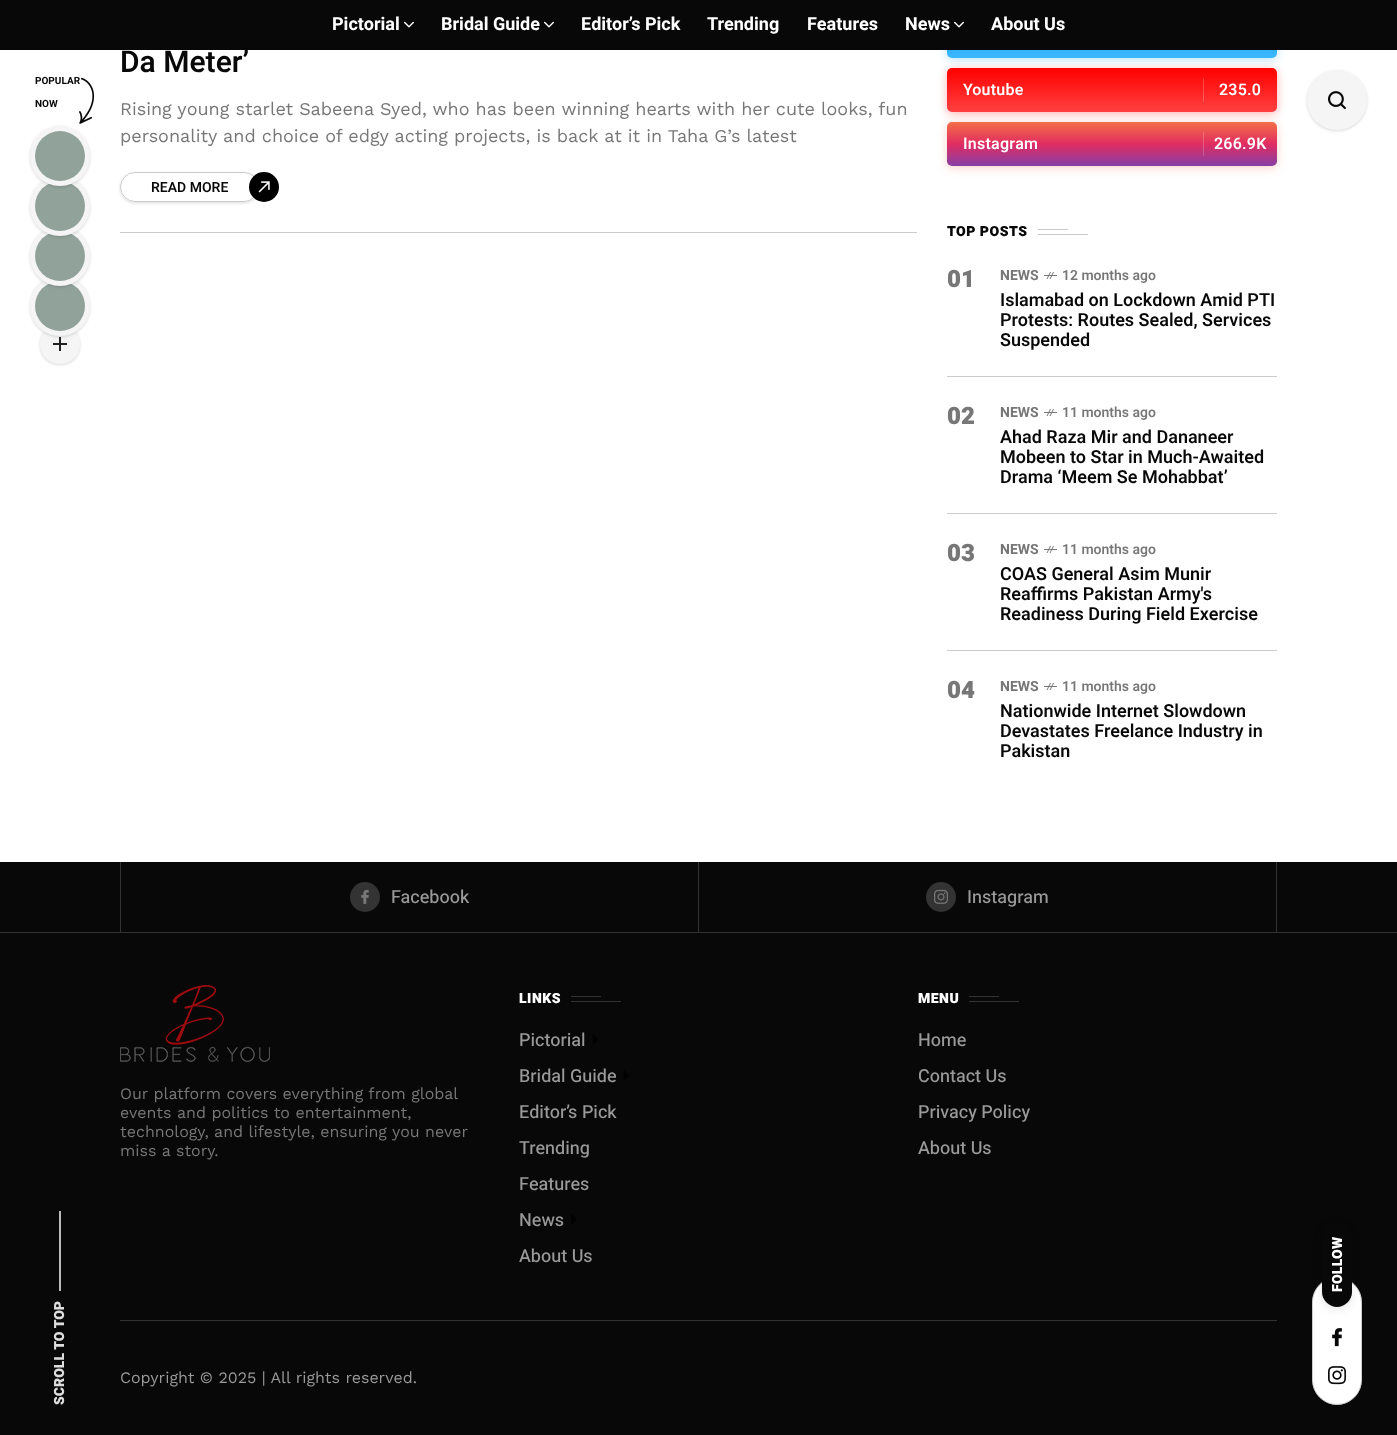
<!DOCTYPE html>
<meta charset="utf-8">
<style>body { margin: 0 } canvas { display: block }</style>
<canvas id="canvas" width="1397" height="1435"></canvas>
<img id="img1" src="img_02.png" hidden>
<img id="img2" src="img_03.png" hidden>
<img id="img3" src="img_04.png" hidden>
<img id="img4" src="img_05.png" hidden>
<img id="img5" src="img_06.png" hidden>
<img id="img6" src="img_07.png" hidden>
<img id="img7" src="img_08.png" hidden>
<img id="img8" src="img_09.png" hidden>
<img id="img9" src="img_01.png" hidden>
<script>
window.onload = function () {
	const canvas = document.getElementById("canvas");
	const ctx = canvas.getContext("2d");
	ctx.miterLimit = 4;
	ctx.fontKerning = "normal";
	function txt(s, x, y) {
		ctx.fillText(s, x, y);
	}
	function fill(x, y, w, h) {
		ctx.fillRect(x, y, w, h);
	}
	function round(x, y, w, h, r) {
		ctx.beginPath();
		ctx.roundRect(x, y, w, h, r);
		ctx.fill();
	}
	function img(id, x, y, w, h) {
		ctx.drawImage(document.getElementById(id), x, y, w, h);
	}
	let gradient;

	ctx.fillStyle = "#FFFFFF";
	fill(0, 0, 1397, 1435);
	ctx.fillStyle = "rgba(0, 0, 0, 0.15)";
	ctx.filter = "blur(1.5px)";
	ctx.beginPath();
	ctx.roundRect(40, 325, 40, 40, 20);
	ctx.fill();
	ctx.filter = "none";
	ctx.fillStyle = "#F5F5F5";
	ctx.beginPath();
	ctx.arc(60, 344, 20, 0, Math.PI * 2);
	ctx.fill();
	ctx.fillStyle = "#222222";
	fill(53, 343, 14, 2);
	fill(59, 337, 2, 14);
	ctx.fillStyle = "rgba(0, 0, 0, 0.15)";
	ctx.filter = "blur(1.5px)";
	ctx.beginPath();
	ctx.roundRect(30, 277, 60, 60, 30);
	ctx.fill();
	ctx.filter = "none";
	ctx.fillStyle = "#F5F5F5";
	ctx.beginPath();
	ctx.arc(60, 306, 30, 0, Math.PI * 2);
	ctx.fill();
	ctx.fillStyle = "#91A29B";
	ctx.beginPath();
	ctx.arc(60, 306, 25, 0, Math.PI * 2);
	ctx.fill();
	ctx.fillStyle = "rgba(0, 0, 0, 0.15)";
	ctx.filter = "blur(1.5px)";
	ctx.beginPath();
	ctx.roundRect(30, 227, 60, 60, 30);
	ctx.fill();
	ctx.filter = "none";
	ctx.fillStyle = "#F5F5F5";
	ctx.beginPath();
	ctx.arc(60, 256, 30, 0, Math.PI * 2);
	ctx.fill();
	ctx.fillStyle = "#91A29B";
	ctx.beginPath();
	ctx.arc(60, 256, 25, 0, Math.PI * 2);
	ctx.fill();
	ctx.fillStyle = "rgba(0, 0, 0, 0.15)";
	ctx.filter = "blur(1.5px)";
	ctx.beginPath();
	ctx.roundRect(30, 177, 60, 60, 30);
	ctx.fill();
	ctx.filter = "none";
	ctx.fillStyle = "#F5F5F5";
	ctx.beginPath();
	ctx.arc(60, 206, 30, 0, Math.PI * 2);
	ctx.fill();
	ctx.fillStyle = "#91A29B";
	ctx.beginPath();
	ctx.arc(60, 206, 25, 0, Math.PI * 2);
	ctx.fill();
	ctx.fillStyle = "rgba(0, 0, 0, 0.15)";
	ctx.filter = "blur(1.5px)";
	ctx.beginPath();
	ctx.roundRect(30, 127, 60, 60, 30);
	ctx.fill();
	ctx.filter = "none";
	ctx.fillStyle = "#F5F5F5";
	ctx.beginPath();
	ctx.arc(60, 156, 30, 0, Math.PI * 2);
	ctx.fill();
	ctx.fillStyle = "#91A29B";
	ctx.beginPath();
	ctx.arc(60, 156, 25, 0, Math.PI * 2);
	ctx.fill();
	ctx.fillStyle = "rgba(32, 161, 235, 0.3)";
	ctx.filter = "blur(5px)";
	ctx.beginPath();
	ctx.roundRect(947, 16, 330, 44, 5);
	ctx.fill();
	ctx.filter = "none";
	gradient = ctx.createLinearGradient(1112, 14, 1112, 58);
	gradient.addColorStop(0, "#20A1EB");
	gradient.addColorStop(1, "#39B7FF");
	ctx.fillStyle = gradient;
	round(947, 14, 330, 44, 5);
	ctx.fillStyle = "#080808";
	fill(0, 0, 1397, 50);
	img("img1", 404, 21, 10, 7);
	img("img1", 544, 21, 10, 7);
	img("img1", 954, 21, 10, 7);
	ctx.fillStyle = "#CCCCCC";
	fill(120, 232, 797, 1);
	ctx.save();
	ctx.beginPath();
	ctx.moveTo(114, 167);
	ctx.lineTo(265, 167);
	ctx.lineTo(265, 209);
	ctx.lineTo(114, 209);
	ctx.closePath();
	ctx.moveTo(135, 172);
	ctx.lineTo(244, 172);
	ctx.bezierCurveTo(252.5, 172, 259, 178.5, 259, 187);
	ctx.bezierCurveTo(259, 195.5, 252.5, 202, 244, 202);
	ctx.lineTo(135, 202);
	ctx.bezierCurveTo(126.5, 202, 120, 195.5, 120, 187);
	ctx.bezierCurveTo(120, 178.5, 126.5, 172, 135, 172);
	ctx.closePath();
	ctx.clip("evenodd");
	ctx.fillStyle = "rgba(0, 0, 0, 0.15)";
	ctx.filter = "blur(1.5px)";
	ctx.beginPath();
	ctx.roundRect(120, 173, 139, 30, 15);
	ctx.fill();
	ctx.filter = "none";
	ctx.restore();
	ctx.beginPath();
	ctx.roundRect(120.5, 172.5, 138, 29, 14.5);
	ctx.strokeStyle = "#CCCCCC";
	ctx.stroke();
	ctx.fillStyle = "#000000";
	ctx.beginPath();
	ctx.arc(264, 187, 15, 0, Math.PI * 2);
	ctx.fill();
	img("img2", 258, 181, 12, 12);
	ctx.fillStyle = "rgba(255, 0, 0, 0.3)";
	ctx.filter = "blur(5px)";
	ctx.beginPath();
	ctx.roundRect(947, 70, 330, 44, 5);
	ctx.fill();
	ctx.filter = "none";
	gradient = ctx.createLinearGradient(1112, 68, 1112, 112);
	gradient.addColorStop(0, "#FF0000");
	gradient.addColorStop(1, "#FF4040");
	ctx.fillStyle = gradient;
	round(947, 68, 330, 44, 5);
	gradient = ctx.createLinearGradient(1112, 68, 1112, 112);
	gradient.addColorStop(0, "#FF3333");
	gradient.addColorStop(1, "#FF6666");
	ctx.fillStyle = gradient;
	fill(1203, 78, 1, 24);
	ctx.fillStyle = "rgba(244, 111, 70, 0.3)";
	ctx.filter = "blur(5px)";
	ctx.beginPath();
	ctx.roundRect(947, 124, 330, 44, 5);
	ctx.fill();
	ctx.filter = "none";
	gradient = ctx.createLinearGradient(1112, 122, 1112, 166);
	gradient.addColorStop(0, "#F46F46");
	gradient.addColorStop(0.5, "#E12C61");
	gradient.addColorStop(1, "#863FA6");
	ctx.fillStyle = gradient;
	round(947, 122, 330, 44, 5);
	gradient = ctx.createLinearGradient(1112, 122, 1112, 166);
	gradient.addColorStop(0, "#F68C6B");
	gradient.addColorStop(0.5, "#E75681");
	gradient.addColorStop(1, "#9E65B8");
	ctx.fillStyle = gradient;
	fill(1203, 132, 1, 24);
	ctx.fillStyle = "#CCCCCC";
	fill(1038, 229, 30, 1);
	fill(1038, 234, 50, 1);
	fill(947, 376, 330, 1);
	ctx.fillStyle = "#777777";
	fill(1044, 275, 13, 1);
	ctx.beginPath();
	ctx.moveTo(1053, 272);
	ctx.lineTo(1054, 272);
	ctx.lineTo(1050.5, 279);
	ctx.lineTo(1049.5, 279);
	ctx.closePath();
	ctx.fill();
	ctx.beginPath();
	ctx.moveTo(1050, 272);
	ctx.lineTo(1051, 272);
	ctx.lineTo(1047.5, 279);
	ctx.lineTo(1046.5, 279);
	ctx.closePath();
	ctx.fill();
	ctx.fillStyle = "#CCCCCC";
	fill(947, 513, 330, 1);
	ctx.fillStyle = "#777777";
	fill(1044, 412, 13, 1);
	ctx.beginPath();
	ctx.moveTo(1053, 409);
	ctx.lineTo(1054, 409);
	ctx.lineTo(1050.5, 416);
	ctx.lineTo(1049.5, 416);
	ctx.closePath();
	ctx.fill();
	ctx.beginPath();
	ctx.moveTo(1050, 409);
	ctx.lineTo(1051, 409);
	ctx.lineTo(1047.5, 416);
	ctx.lineTo(1046.5, 416);
	ctx.closePath();
	ctx.fill();
	ctx.fillStyle = "#CCCCCC";
	fill(947, 650, 330, 1);
	ctx.fillStyle = "#777777";
	fill(1044, 549, 13, 1);
	ctx.beginPath();
	ctx.moveTo(1053, 546);
	ctx.lineTo(1054, 546);
	ctx.lineTo(1050.5, 553);
	ctx.lineTo(1049.5, 553);
	ctx.closePath();
	ctx.fill();
	ctx.beginPath();
	ctx.moveTo(1050, 546);
	ctx.lineTo(1051, 546);
	ctx.lineTo(1047.5, 553);
	ctx.lineTo(1046.5, 553);
	ctx.closePath();
	ctx.fill();
	fill(1044, 686, 13, 1);
	ctx.beginPath();
	ctx.moveTo(1053, 683);
	ctx.lineTo(1054, 683);
	ctx.lineTo(1050.5, 690);
	ctx.lineTo(1049.5, 690);
	ctx.closePath();
	ctx.fill();
	ctx.beginPath();
	ctx.moveTo(1050, 683);
	ctx.lineTo(1051, 683);
	ctx.lineTo(1047.5, 690);
	ctx.lineTo(1046.5, 690);
	ctx.closePath();
	ctx.fill();
	ctx.fillStyle = "#080808";
	fill(0, 862, 1397, 573);
	ctx.fillStyle = "#333333";
	fill(0, 932, 1397, 1);
	fill(120, 862, 1, 71);
	fill(698, 862, 1, 71);
	ctx.beginPath();
	ctx.arc(365, 897, 15, 0, Math.PI * 2);
	ctx.fill();
	img("img3", 361, 889, 8, 15);
	fill(1276, 862, 1, 71);
	ctx.beginPath();
	ctx.arc(941, 897, 15, 0, Math.PI * 2);
	ctx.fill();
	img("img4", 934, 889, 14, 15);
	fill(120, 1320, 1157, 1);
	img("img5", 120, 985, 150, 77);
	fill(571, 996, 30, 1);
	fill(571, 1001, 50, 1);
	ctx.fillStyle = "#000000";
	ctx.beginPath();
	ctx.moveTo(592.5, 1045.5);
	ctx.lineTo(592.5, 1033.5);
	ctx.lineTo(598.5, 1039.5);
	ctx.closePath();
	ctx.fill();
	ctx.beginPath();
	ctx.moveTo(623.5, 1081.5);
	ctx.lineTo(623.5, 1069.5);
	ctx.lineTo(629.5, 1075.5);
	ctx.closePath();
	ctx.fill();
	ctx.beginPath();
	ctx.moveTo(571, 1225.5);
	ctx.lineTo(571, 1213.5);
	ctx.lineTo(577, 1219.5);
	ctx.closePath();
	ctx.fill();
	ctx.fillStyle = "#333333";
	fill(969, 996, 30, 1);
	fill(969, 1001, 50, 1);
	ctx.fillStyle = "rgba(0, 0, 0, 0.15)";
	ctx.filter = "blur(1.5px)";
	ctx.beginPath();
	ctx.roundRect(1307, 71, 60, 60, 30);
	ctx.fill();
	ctx.filter = "none";
	ctx.fillStyle = "#F5F5F5";
	ctx.beginPath();
	ctx.arc(1337, 100, 30, 0, Math.PI * 2);
	ctx.fill();
	img("img6", 1328, 91, 18, 19);
	ctx.fillStyle = "#FFFFFF";
	ctx.beginPath();
	ctx.roundRect(1312.5, 1277.5, 49, 127, 24.5);
	ctx.fill();
	ctx.stroke();
	ctx.fillStyle = "rgba(0, 0, 0, 0.1)";
	ctx.filter = "blur(5px)";
	ctx.beginPath();
	ctx.roundRect(1322, 1224, 30, 85, 15);
	ctx.fill();
	ctx.filter = "none";
	ctx.fillStyle = "#080808";
	ctx.beginPath();
	ctx.moveTo(1337, 1307);
	ctx.bezierCurveTo(1329, 1307, 1322, 1300, 1322, 1292);
	ctx.lineTo(1322, 1237);
	ctx.bezierCurveTo(1322, 1228, 1329, 1222, 1337, 1222);
	ctx.bezierCurveTo(1345, 1222, 1352, 1228, 1352, 1237);
	ctx.lineTo(1352, 1292);
	ctx.bezierCurveTo(1352, 1300, 1345, 1307, 1337, 1307);
	ctx.closePath();
	ctx.fill();
	img("img7", 1332, 1328, 10, 19);
	img("img8", 1328, 1366, 18, 19);
	ctx.fillStyle = "#BBBBBB";
	fill(59, 1211, 2, 80);
	ctx.font = "bold 10px Heebo";
	ctx.fillStyle = "#080808";
	txt("POPULAR", 35, 84);
	img("img9", 79, 77, 16, 47);
	txt("NOW", 35, 107);
	ctx.font = "bold 18px Heebo";
	ctx.fillStyle = "#FFFFFF";
	txt("Pictorial", 332, 30);
	txt("Bridal Guide", 441, 30);
	txt("Editor’s Pick", 581, 30);
	txt("Trending", 707, 30);
	txt("Features", 807, 30);
	txt("News", 905, 30);
	txt("About Us", 991, 30);
	ctx.font = "600 30px Heebo";
	ctx.fillStyle = "#080808";
	txt("Da Meter’", 120, 72);
	ctx.font = "18px Work Sans";
	ctx.fillStyle = "#777777";
	txt("Rising young starlet Sabeena Syed, who has been winning hearts with her cute looks, fun", 120, 115);
	txt("personality and choice of edgy acting projects, is back at it in Taha G’s latest", 120, 142);
	ctx.font = "600 14px Heebo";
	ctx.fillStyle = "#080808";
	txt("READ MORE", 151, 192);
	ctx.letterSpacing = "0.25px";
	ctx.font = "600 16px Heebo";
	ctx.fillStyle = "#FFFFFF";
	txt("Youtube", 963, 95);
	txt("235.0", 1219, 95);
	txt("Instagram", 963, 149);
	txt("266.9K", 1214, 149);
	ctx.letterSpacing = "0.5px";
	ctx.font = "900 14px Heebo";
	ctx.fillStyle = "#080808";
	txt("TOP POSTS", 947, 236);
	ctx.letterSpacing = "0px";
	ctx.font = "900 24px Heebo";
	ctx.fillStyle = "#777777";
	txt("01", 947, 287);
	ctx.font = "bold 14px Heebo";
	txt("NEWS", 1000, 280);
	ctx.font = "600 14px Heebo";
	txt("12 months ago", 1062, 280);
	ctx.font = "600 18px Heebo";
	ctx.fillStyle = "#080808";
	txt("Islamabad on Lockdown Amid PTI", 1000, 306);
	txt("Protests: Routes Sealed, Services", 1000, 326);
	txt("Suspended", 1000, 346);
	ctx.font = "900 24px Heebo";
	ctx.fillStyle = "#777777";
	txt("02", 947, 424);
	ctx.font = "bold 14px Heebo";
	txt("NEWS", 1000, 417);
	ctx.font = "600 14px Heebo";
	txt("11 months ago", 1062, 417);
	ctx.font = "600 18px Heebo";
	ctx.fillStyle = "#080808";
	txt("Ahad Raza Mir and Dananeer", 1000, 443);
	txt("Mobeen to Star in Much-Awaited", 1000, 463);
	txt("Drama ‘Meem Se Mohabbat’", 1000, 483);
	ctx.font = "900 24px Heebo";
	ctx.fillStyle = "#777777";
	txt("03", 947, 561);
	ctx.font = "bold 14px Heebo";
	txt("NEWS", 1000, 554);
	ctx.font = "600 14px Heebo";
	txt("11 months ago", 1062, 554);
	ctx.font = "600 18px Heebo";
	ctx.fillStyle = "#080808";
	txt("COAS General Asim Munir", 1000, 580);
	txt("Reaffirms Pakistan Army's", 1000, 600);
	txt("Readiness During Field Exercise", 1000, 620);
	ctx.font = "900 24px Heebo";
	ctx.fillStyle = "#777777";
	txt("04", 947, 698);
	ctx.font = "bold 14px Heebo";
	txt("NEWS", 1000, 691);
	ctx.font = "600 14px Heebo";
	txt("11 months ago", 1062, 691);
	ctx.font = "600 18px Heebo";
	ctx.fillStyle = "#080808";
	txt("Nationwide Internet Slowdown", 1000, 717);
	txt("Devastates Freelance Industry in", 1000, 737);
	txt("Pakistan", 1000, 757);
	ctx.font = "500 18px Heebo";
	ctx.fillStyle = "#999999";
	txt("Facebook", 391, 903);
	txt("Instagram", 967, 903);
	ctx.font = "16px Work Sans";
	ctx.fillStyle = "#777777";
	txt("Our platform covers everything from global", 120, 1099);
	txt("events and politics to entertainment,", 120, 1118);
	txt("technology, and lifestyle, ensuring you never", 120, 1137);
	txt("miss a story.", 120, 1156);
	ctx.letterSpacing = "0.5px";
	ctx.font = "900 14px Heebo";
	ctx.fillStyle = "#FFFFFF";
	txt("LINKS", 519, 1003);
	ctx.letterSpacing = "0px";
	ctx.font = "500 18px Heebo";
	ctx.fillStyle = "#999999";
	txt("Pictorial", 519, 1046);
	txt("Bridal Guide", 519, 1082);
	txt("Editor’s Pick", 519, 1118);
	txt("Trending", 519, 1154);
	txt("Features", 519, 1190);
	txt("News", 519, 1226);
	txt("About Us", 519, 1262);
	ctx.letterSpacing = "0.5px";
	ctx.font = "900 14px Heebo";
	ctx.fillStyle = "#FFFFFF";
	txt("MENU", 918, 1003);
	ctx.letterSpacing = "0px";
	ctx.font = "500 18px Heebo";
	ctx.fillStyle = "#999999";
	txt("Home", 918, 1046);
	txt("Contact Us", 918, 1082);
	txt("Privacy Policy", 918, 1118);
	txt("About Us", 918, 1154);
	ctx.font = "16px Work Sans";
	txt("Copyright © 2025 | All rights reserved.", 120, 1383);
	ctx.letterSpacing = "0.25px";
	ctx.font = "900 14px Heebo";
	ctx.fillStyle = "#FFFFFF";
	ctx.save();
	ctx.translate(1342, 1292);
	ctx.rotate(-90 * Math.PI / 180);
	ctx.fillText("FOLLOW", 0, 0);
	ctx.restore();
	ctx.letterSpacing = "0px";
	ctx.fillStyle = "#DDDDDD";
	ctx.save();
	ctx.translate(64, 1405);
	ctx.rotate(-90 * Math.PI / 180);
	ctx.fillText("SCROLL TO TOP", 0, 0);
	ctx.restore();
};
</script>
